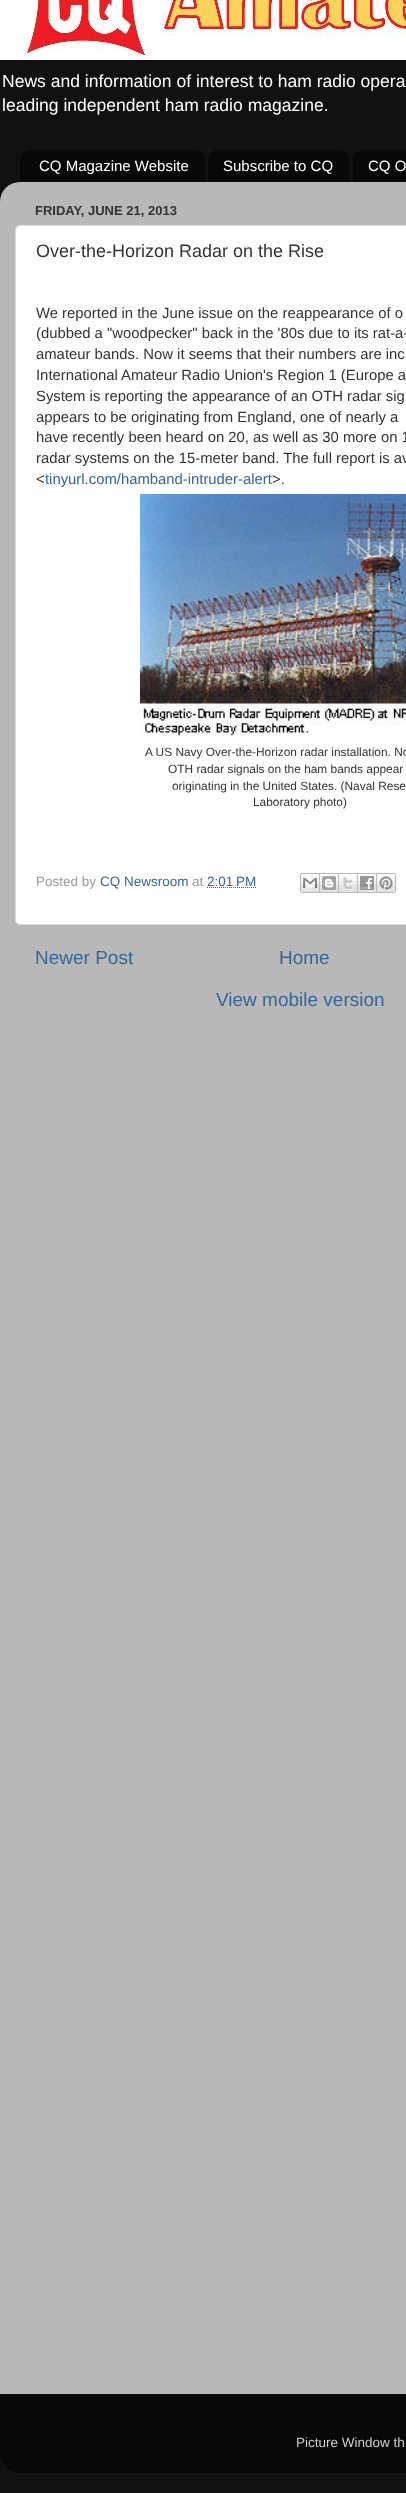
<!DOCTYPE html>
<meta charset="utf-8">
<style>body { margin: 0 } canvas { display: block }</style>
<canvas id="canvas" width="406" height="2493"></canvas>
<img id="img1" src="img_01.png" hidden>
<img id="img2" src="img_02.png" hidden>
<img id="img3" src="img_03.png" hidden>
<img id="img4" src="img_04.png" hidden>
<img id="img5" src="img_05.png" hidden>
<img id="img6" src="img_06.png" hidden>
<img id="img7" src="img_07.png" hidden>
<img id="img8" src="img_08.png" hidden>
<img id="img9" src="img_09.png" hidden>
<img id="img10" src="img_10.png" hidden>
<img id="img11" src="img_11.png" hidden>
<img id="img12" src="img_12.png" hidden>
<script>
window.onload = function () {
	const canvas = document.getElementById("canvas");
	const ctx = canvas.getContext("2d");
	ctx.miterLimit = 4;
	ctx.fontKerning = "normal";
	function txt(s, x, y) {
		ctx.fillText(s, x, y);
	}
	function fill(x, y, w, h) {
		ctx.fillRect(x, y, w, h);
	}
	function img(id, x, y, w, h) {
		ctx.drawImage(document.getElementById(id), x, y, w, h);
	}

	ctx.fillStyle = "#111111";
	fill(0, 0, 406, 2493);
	img("img1", 0, 0, 406, 60);
	img("img2", 20, 150, 185, 32);
	img("img3", 208, 150, 141, 32);
	img("img4", 353, 150, 53, 32);
	img("img5", 0, 182, 406, 2212);
	ctx.fillStyle = "#FFFFFF";
	ctx.beginPath();
	ctx.roundRect(15.5, 225.5, 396, 699, 4.5);
	ctx.fill();
	ctx.strokeStyle = "#DDDDDD";
	ctx.stroke();
	img("img6", 140, 494, 266, 242);
	ctx.beginPath();
	ctx.moveTo(207, 887.5);
	ctx.lineTo(256.5, 887.5);
	ctx.strokeStyle = "#336699";
	ctx.setLineDash([1, 1]);
	ctx.stroke();
	img("img7", 300, 873, 20, 20);
	img("img8", 320, 873, 19, 20);
	img("img9", 339, 873, 19, 20);
	img("img10", 358, 873, 19, 20);
	img("img11", 377, 873, 19, 20);
	img("img12", 0, 2394, 406, 79);
	ctx.font = "17.55px Liberation Sans";
	txt("News and information of interest to ham radio opera", 2, 87);
	txt("leading independent ham radio magazine.", 2, 111);
	ctx.font = "15px Liberation Sans";
	txt("CQ Magazine Website", 39, 171);
	txt("Subscribe to CQ", 223, 171);
	txt("CQ O", 368, 171);
	ctx.font = "bold 13px Liberation Sans";
	ctx.fillStyle = "#333333";
	txt("FRIDAY, JUNE 21, 2013", 35, 215);
	ctx.font = "18px Liberation Sans";
	txt("Over-the-Horizon Radar on the Rise", 36, 257);
	ctx.font = "14.85px Liberation Sans";
	txt("We reported in the June issue on the reappearance of o", 36, 318);
	txt("(dubbed a \"woodpecker\" back in the '80s due to its rat-a-", 36, 338);
	txt("amateur bands. Now it seems that their numbers are inc", 36, 359);
	txt("International Amateur Radio Union's Region 1 (Europe a", 36, 380);
	txt("System is reporting the appearance of an OTH radar sig", 36, 401);
	txt("appears to be originating from England, one of nearly a", 36, 422);
	txt("have recently been heard on 20, as well as 30 more on 1", 36, 442);
	txt("radar systems on the 15-meter band. The full report is av", 36, 463);
	txt("<", 36, 484);
	ctx.fillStyle = "#336699";
	txt("tinyurl.com/hamband-intruder-alert", 45, 484);
	ctx.fillStyle = "#333333";
	txt(">.", 272, 484);
	ctx.font = "11.9px Liberation Sans";
	txt("A US Navy Over-the-Horizon radar installation. No", 145, 756);
	txt("OTH radar signals on the ham bands appear", 168, 773);
	txt("originating in the United States. (Naval Rese", 172, 790);
	txt("Laboratory photo)", 253, 806);
	ctx.font = "13.5px Liberation Sans";
	ctx.fillStyle = "#999999";
	txt("Posted by", 36, 886);
	ctx.fillStyle = "#336699";
	txt("CQ Newsroom", 100, 886);
	ctx.fillStyle = "#999999";
	txt("at", 192, 886);
	ctx.fillStyle = "#336699";
	txt("2:01 PM", 207, 886);
	ctx.font = "19px Liberation Sans";
	txt("Newer Post", 35, 964);
	txt("Home", 279, 964);
	txt("View mobile version", 216, 1006);
	ctx.font = "13.5px Liberation Sans";
	ctx.fillStyle = "#CCCCCC";
	txt("Picture Window th", 296, 2447);
};
</script>
